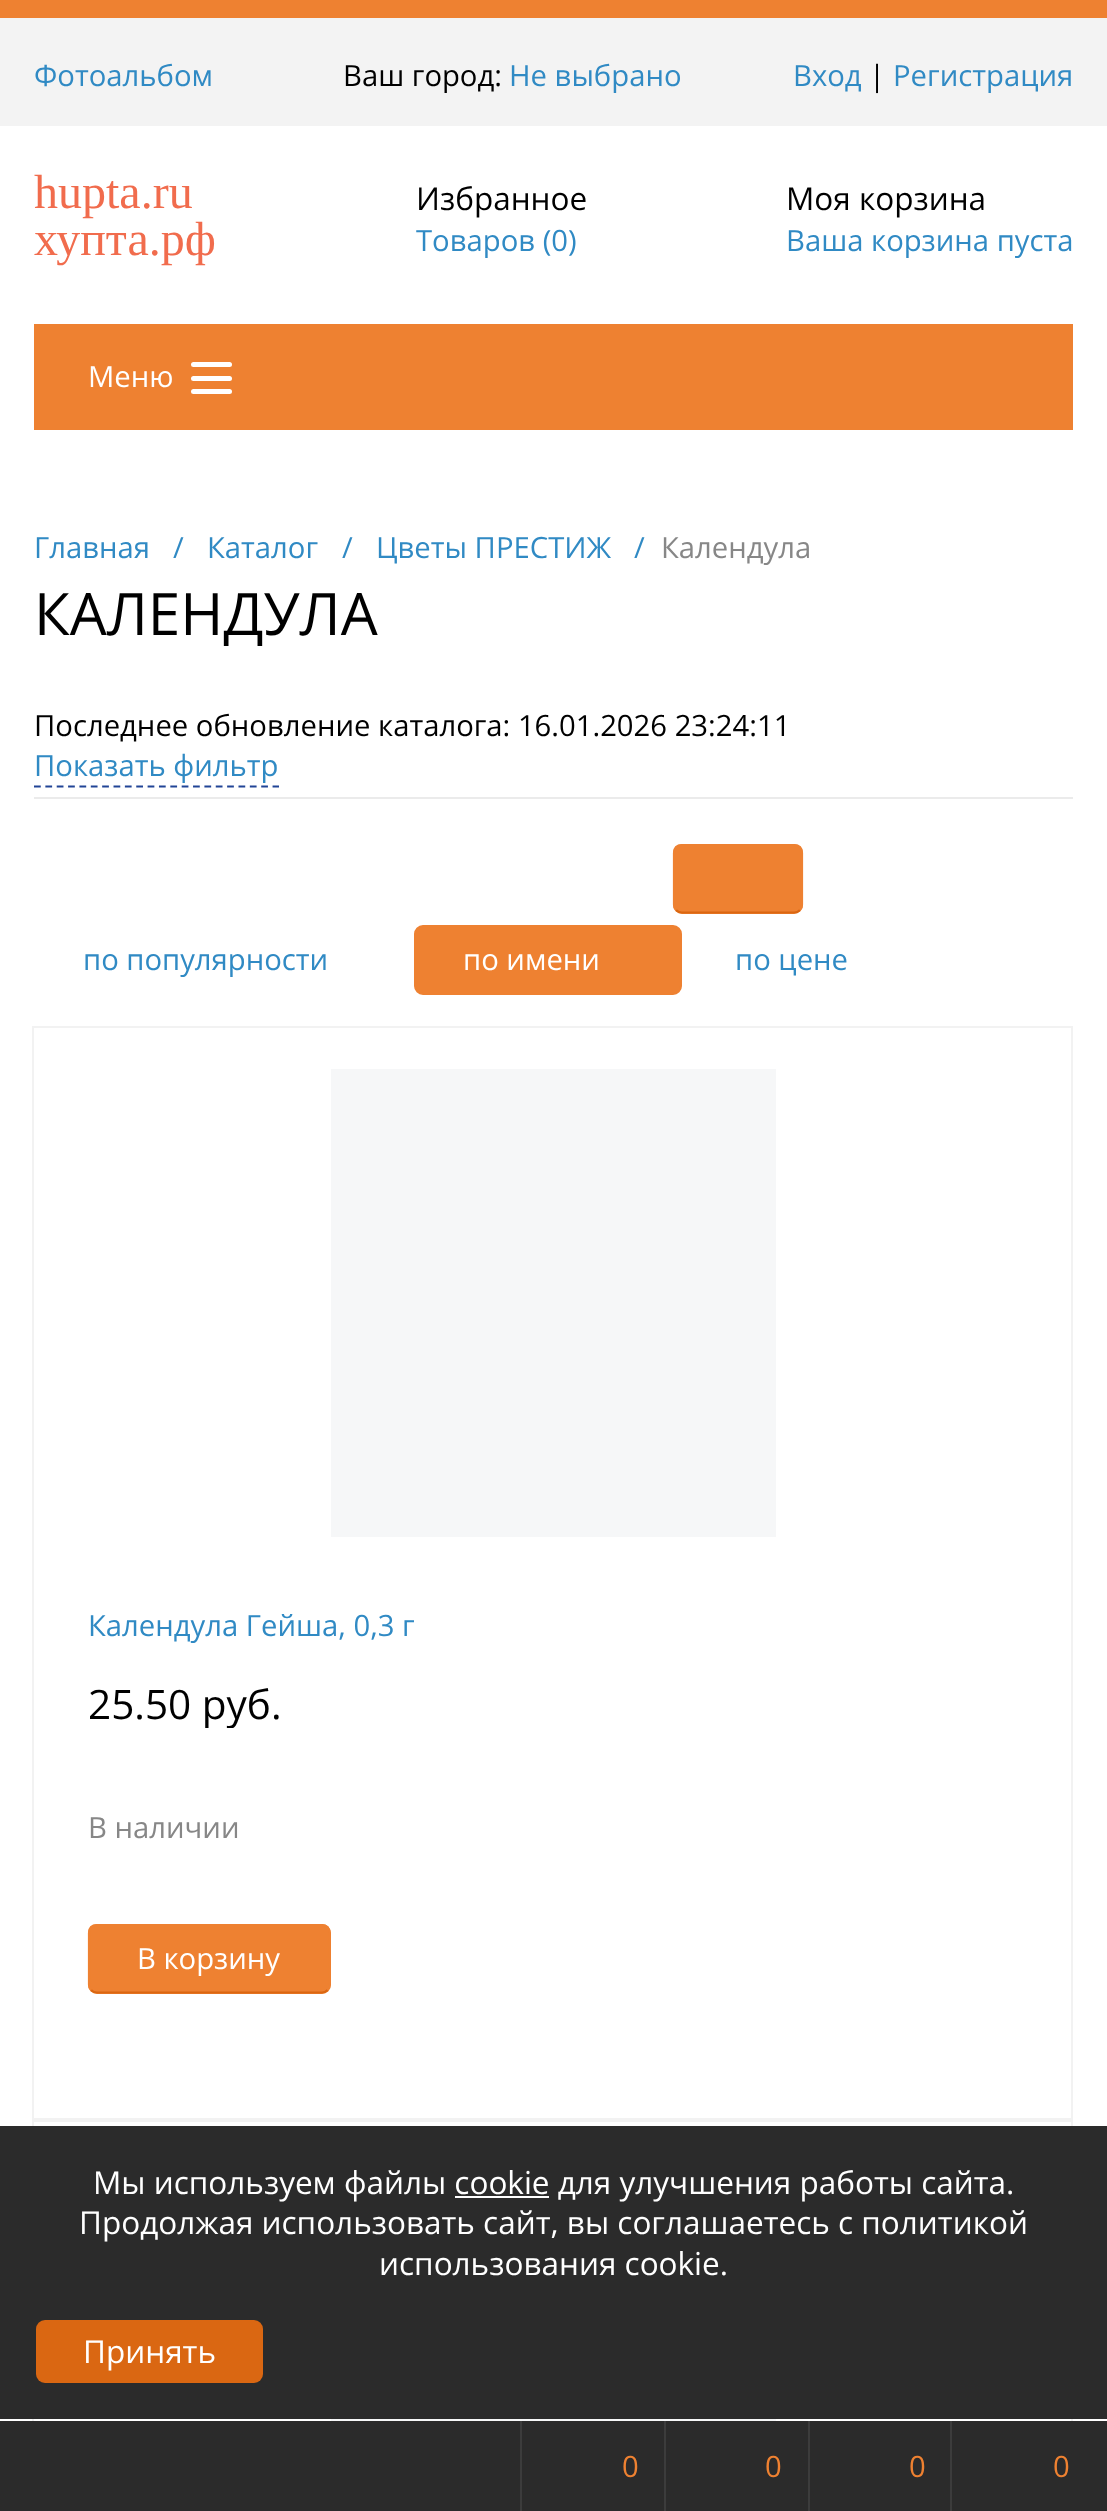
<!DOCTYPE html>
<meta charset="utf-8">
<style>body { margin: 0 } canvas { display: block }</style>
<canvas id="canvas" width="1107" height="2511"></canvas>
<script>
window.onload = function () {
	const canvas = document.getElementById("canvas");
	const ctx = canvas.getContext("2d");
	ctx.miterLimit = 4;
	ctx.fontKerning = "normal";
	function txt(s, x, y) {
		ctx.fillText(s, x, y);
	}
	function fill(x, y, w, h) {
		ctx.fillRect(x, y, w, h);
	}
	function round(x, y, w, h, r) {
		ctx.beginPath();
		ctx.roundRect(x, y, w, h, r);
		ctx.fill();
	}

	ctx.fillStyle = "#FFFFFF";
	fill(0, 0, 1107, 2511);
	ctx.fillStyle = "#F3F3F3";
	fill(0, 18, 1107, 108);
	ctx.fillStyle = "#EE8131";
	fill(0, 0, 1107, 18);
	fill(34, 324, 1039, 106);
	ctx.fillStyle = "#FFFFFF";
	round(191, 362, 41, 5, 2.5);
	round(191, 376, 41, 5, 2.5);
	round(191, 389, 41, 5, 2.5);
	ctx.beginPath();
	ctx.moveTo(34, 786.5);
	ctx.lineTo(279, 786.5);
	ctx.strokeStyle = "#214496";
	ctx.lineWidth = 2.2;
	ctx.setLineDash([6.75, 4.61]);
	ctx.stroke();
	ctx.fillStyle = "#EBEBEB";
	fill(34, 797, 1039, 2);
	ctx.fillStyle = "#EE8131";
	round(673, 844, 130, 70, 9);
	ctx.beginPath();
	ctx.moveTo(800, 910);
	ctx.bezierCurveTo(798.5, 911.5, 796.5, 912.5, 794, 912.5);
	ctx.lineTo(682, 912.5);
	ctx.bezierCurveTo(679.5, 912.5, 677.5, 911.5, 676, 910);
	ctx.strokeStyle = "#DA6712";
	ctx.setLineDash([]);
	ctx.stroke();
	ctx.beginPath();
	ctx.moveTo(676, 910);
	ctx.bezierCurveTo(674.5, 908.5, 674, 906.5, 674, 904.5);
	ctx.lineTo(674, 853);
	ctx.bezierCurveTo(674, 850.5, 674.5, 848.5, 676, 847);
	ctx.bezierCurveTo(677.5, 845.5, 679.5, 845, 682, 845);
	ctx.lineTo(794, 845);
	ctx.bezierCurveTo(796.5, 845, 798.5, 845.5, 800, 847);
	ctx.bezierCurveTo(801.5, 848.5, 802, 850.5, 802, 853);
	ctx.lineTo(802, 904.5);
	ctx.bezierCurveTo(802, 906.5, 801.5, 908.5, 800, 910);
	ctx.strokeStyle = "#EE8131";
	ctx.stroke();
	ctx.beginPath();
	ctx.roundRect(415, 926, 266, 68, 8);
	ctx.fill();
	ctx.lineWidth = 2;
	ctx.stroke();
	ctx.strokeStyle = "#F2F2F2";
	ctx.strokeRect(33, 1027, 1039, 1092);
	ctx.fillStyle = "#F6F7F8";
	fill(331, 1069, 445, 468);
	ctx.fillStyle = "#EE8131";
	round(88, 1924, 243, 70, 9);
	ctx.beginPath();
	ctx.moveTo(327.5, 1990);
	ctx.bezierCurveTo(326, 1991.5, 324, 1992.5, 322, 1992.5);
	ctx.lineTo(97, 1992.5);
	ctx.bezierCurveTo(94.5, 1992.5, 92.5, 1991.5, 91, 1990);
	ctx.strokeStyle = "#DA6712";
	ctx.lineWidth = 2.2;
	ctx.stroke();
	ctx.beginPath();
	ctx.moveTo(91, 1990);
	ctx.bezierCurveTo(89.5, 1988.5, 89, 1986.5, 89, 1984.5);
	ctx.lineTo(89, 1933);
	ctx.bezierCurveTo(89, 1930.5, 89.5, 1928.5, 91, 1927);
	ctx.bezierCurveTo(92.5, 1925.5, 94.5, 1925, 97, 1925);
	ctx.lineTo(322, 1925);
	ctx.bezierCurveTo(324, 1925, 326, 1925.5, 327.5, 1927);
	ctx.bezierCurveTo(329, 1928.5, 329.5, 1930.5, 329.5, 1933);
	ctx.lineTo(329.5, 1984.5);
	ctx.bezierCurveTo(329.5, 1986.5, 329, 1988.5, 327.5, 1990);
	ctx.strokeStyle = "#EE8131";
	ctx.stroke();
	ctx.strokeStyle = "#F2F2F2";
	ctx.lineWidth = 2;
	ctx.strokeRect(33, 2121, 1039, 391);
	ctx.fillStyle = "#F6F7F8";
	fill(331, 2419, 445, 2);
	ctx.fillStyle = "#2B2B2B";
	fill(0, 2126, 1107, 293);
	ctx.fillStyle = "#FFFFFF";
	fill(455, 2196, 94, 2);
	ctx.fillStyle = "#DA6712";
	round(36, 2320, 227, 63, 9);
	ctx.fillStyle = "#2B2B2B";
	fill(0, 2421, 1107, 90);
	ctx.fillStyle = "#3C3C3C";
	fill(520, 2421, 2, 90);
	fill(664, 2421, 2, 90);
	fill(808, 2421, 2, 90);
	fill(950, 2421, 2, 90);
	ctx.font = "29.25px Open Sans";
	ctx.fillStyle = "#308AC4";
	txt("Фотоальбом", 34, 86);
	ctx.fillStyle = "#000000";
	txt("Ваш город:", 343, 86);
	ctx.fillStyle = "#308AC4";
	txt("Не выбрано", 509, 86);
	txt("Вход", 793, 86);
	ctx.fillStyle = "#000000";
	txt("|", 869, 86);
	ctx.fillStyle = "#308AC4";
	txt("Регистрация", 893, 86);
	ctx.font = "48px Liberation Serif";
	ctx.fillStyle = "#F16C4D";
	txt("hupta.ru", 34, 208);
	txt("хупта.рф", 34, 255);
	ctx.font = "31.5px Open Sans";
	ctx.fillStyle = "#000000";
	txt("Избранное", 416, 210);
	ctx.font = "29.25px Open Sans";
	ctx.fillStyle = "#308AC4";
	txt("Товаров (0)", 416, 251);
	ctx.font = "31.5px Open Sans";
	ctx.fillStyle = "#000000";
	txt("Моя корзина", 786, 210);
	ctx.font = "29.25px Open Sans";
	ctx.fillStyle = "#308AC4";
	txt("Ваша корзина пуста", 786, 251);
	ctx.fillStyle = "#FFFFFF";
	txt("Меню", 88, 387);
	ctx.fillStyle = "#308AC4";
	txt("Главная", 34, 558);
	txt("/", 173, 558);
	txt("Каталог", 207, 558);
	txt("/", 342, 558);
	txt("Цветы ПРЕСТИЖ", 376, 558);
	txt("/", 634, 558);
	ctx.fillStyle = "#878787";
	txt("Календула", 661, 558);
	ctx.font = "58.5px Open Sans";
	ctx.fillStyle = "#000000";
	txt("КАЛЕНДУЛА", 34, 635);
	ctx.font = "29.25px Open Sans";
	txt("Последнее обновление каталога: 16.01.2026 23:24:11", 34, 736);
	ctx.fillStyle = "#308AC4";
	txt("Показать фильтр", 34, 776);
	txt("по популярности", 83, 970);
	ctx.fillStyle = "#FFFFFF";
	txt("по имени", 463, 970);
	ctx.fillStyle = "#308AC4";
	txt("по цене", 735, 970);
	txt("Календула Гейша, 0,3 г", 88, 1636);
	ctx.save();
	ctx.beginPath();
	ctx.rect(88, 1683, 929, 45);
	ctx.clip();
	ctx.font = "40.5px Open Sans";
	ctx.fillStyle = "#000000";
	txt("25.50 руб.", 88, 1719);
	ctx.restore();
	ctx.fillStyle = "#878787";
	txt("В наличии", 88, 1838);
	ctx.fillStyle = "#FFFFFF";
	txt("В корзину", 137, 1969);
	ctx.font = "31.5px Open Sans";
	txt("Мы используем файлы cookie для улучшения работы сайта.", 93, 2194);
	txt("Продолжая использовать сайт, вы соглашаетесь с политикой", 79, 2234);
	txt("использования cookie.", 379, 2275);
	txt("Принять", 83, 2363);
	ctx.font = "29.25px Open Sans";
	ctx.fillStyle = "#EE8131";
	txt("0", 622, 2477);
	txt("0", 765, 2477);
	txt("0", 909, 2477);
	txt("0", 1053, 2477);
};
</script>
